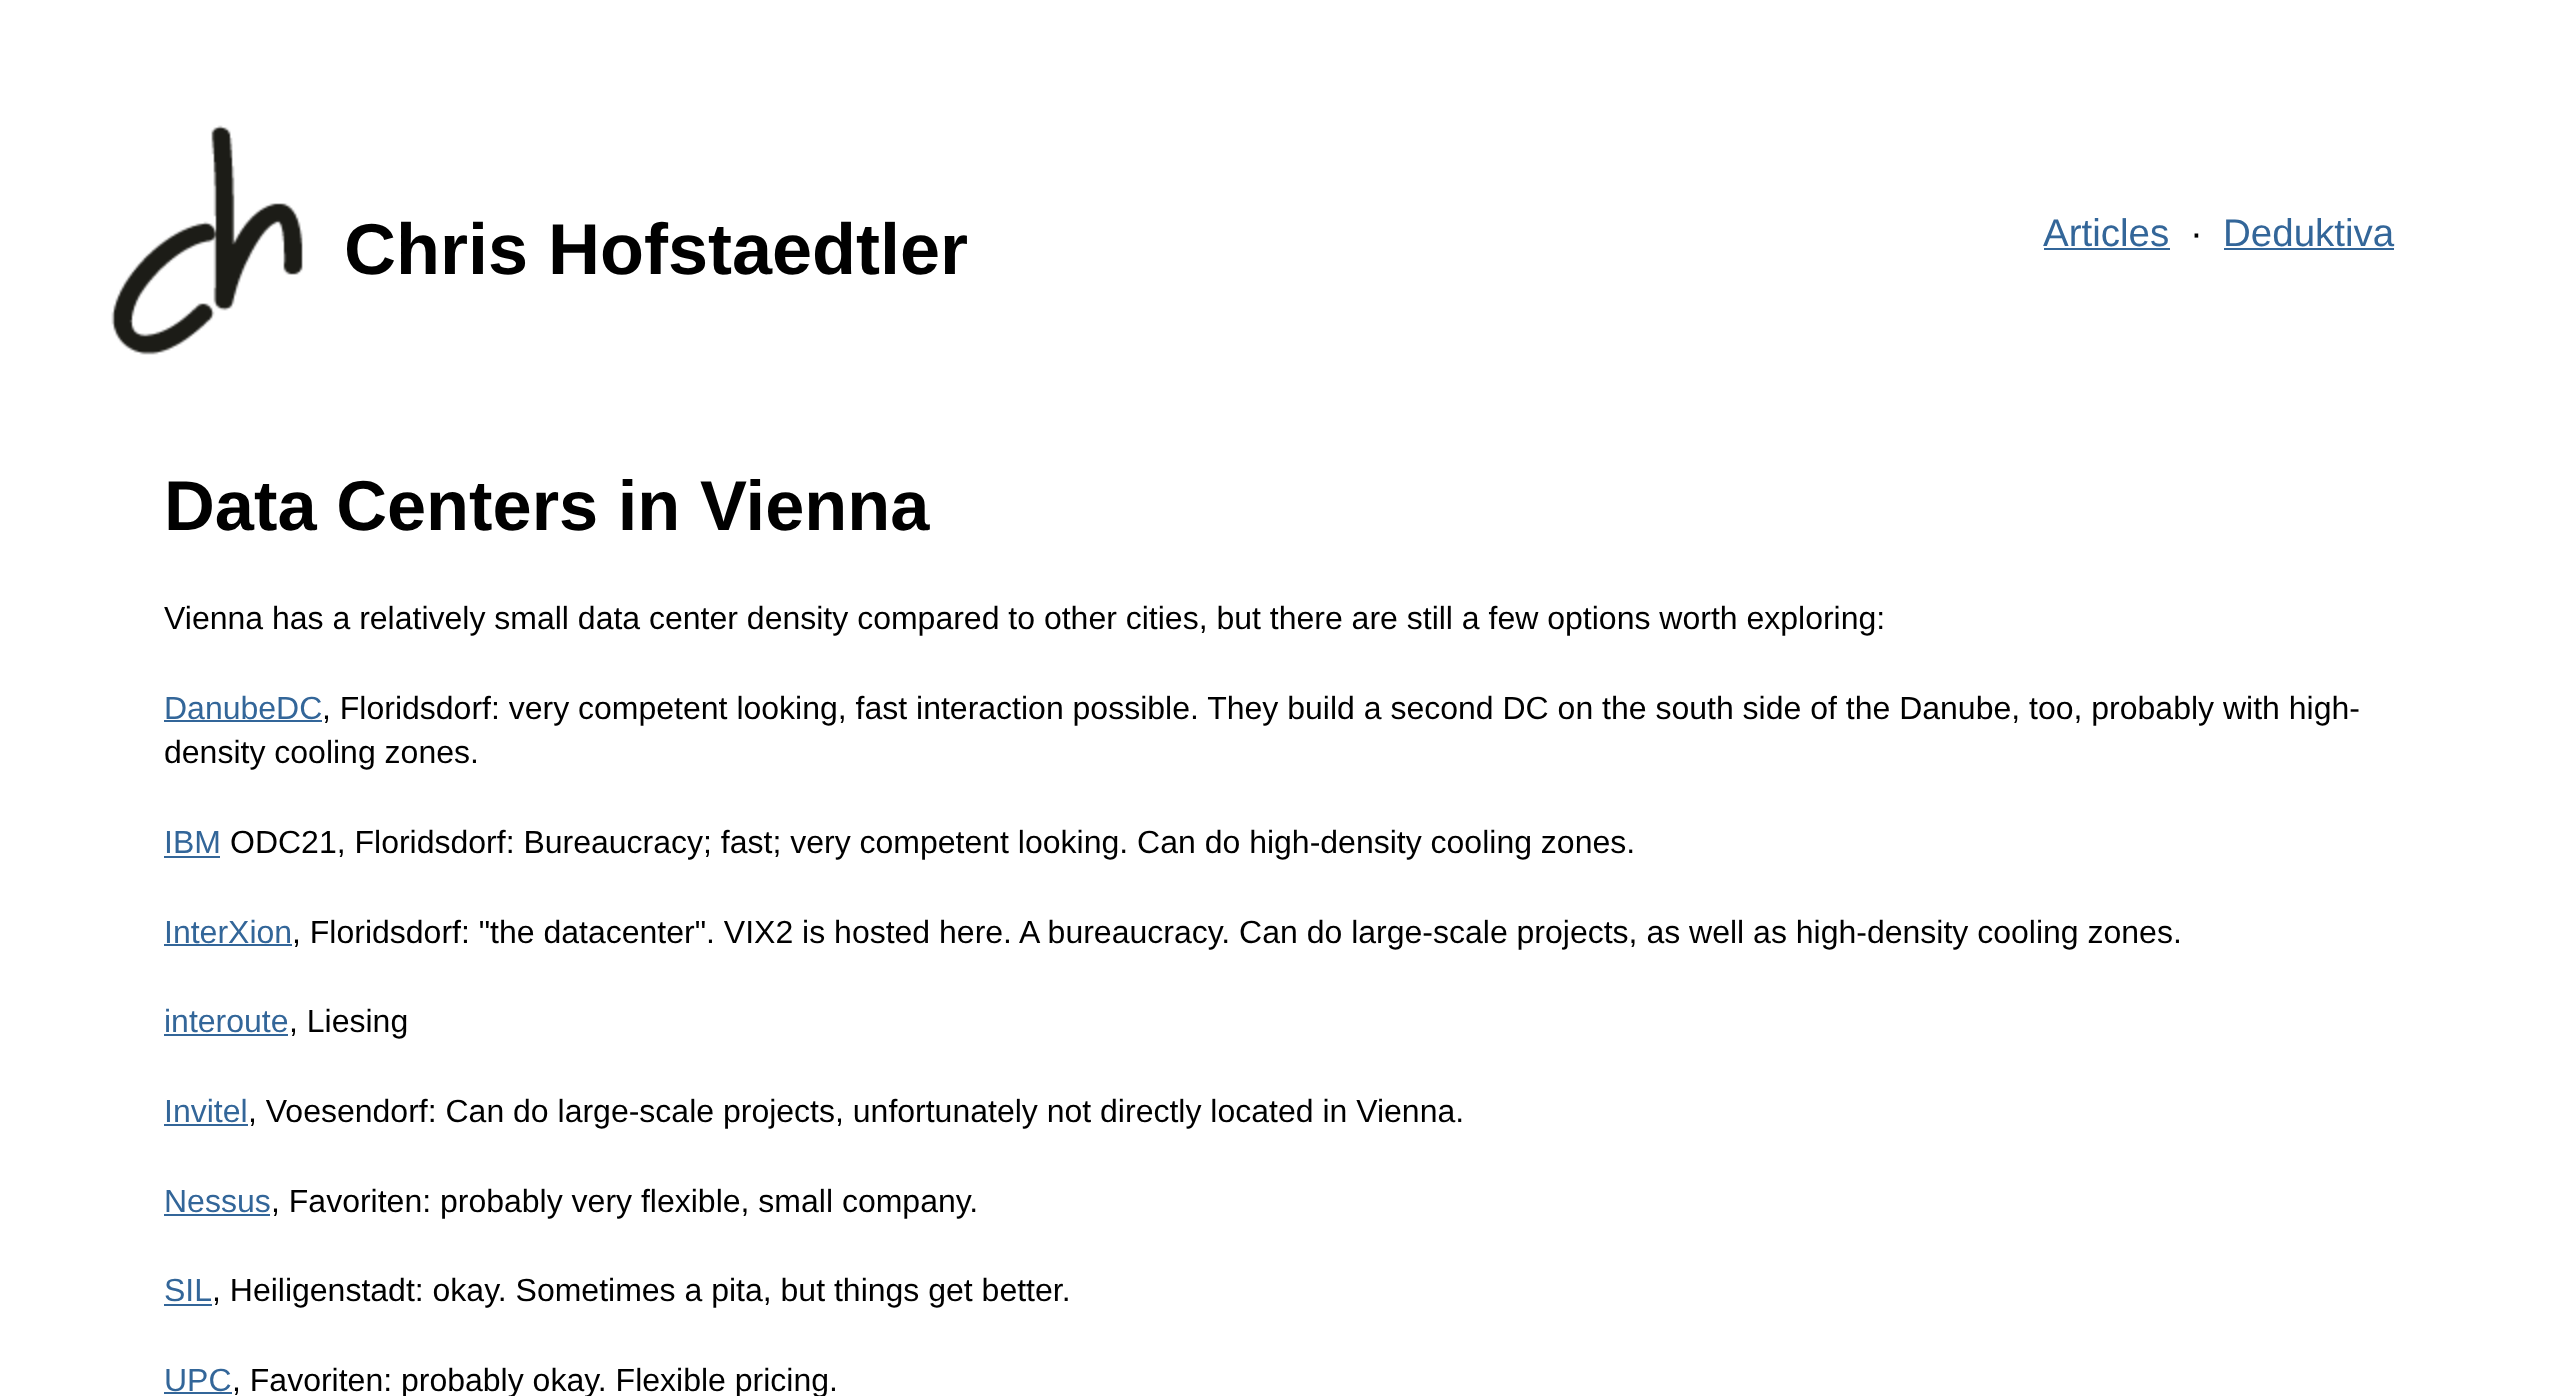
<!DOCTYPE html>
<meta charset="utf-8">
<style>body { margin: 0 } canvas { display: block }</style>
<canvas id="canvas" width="2568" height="1396"></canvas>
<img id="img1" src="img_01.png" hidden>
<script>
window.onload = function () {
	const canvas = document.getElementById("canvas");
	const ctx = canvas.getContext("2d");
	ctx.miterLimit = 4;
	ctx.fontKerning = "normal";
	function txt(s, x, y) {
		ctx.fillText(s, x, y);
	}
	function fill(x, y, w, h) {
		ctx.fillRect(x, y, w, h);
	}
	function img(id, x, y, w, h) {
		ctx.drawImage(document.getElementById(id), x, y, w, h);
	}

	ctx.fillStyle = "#FFFFFF";
	fill(0, 0, 2568, 1396);
	img("img1", 111, 125, 192, 230);
	ctx.fillStyle = "#336699";
	fill(2044, 248, 126, 2);
	fill(2224, 248, 170, 2);
	fill(164, 720, 158, 2);
	fill(164, 856, 56, 2);
	fill(164, 944, 128, 2);
	fill(164, 1034, 124, 2);
	fill(164, 1124, 84, 2);
	fill(164, 1214, 106, 2);
	fill(164, 1304, 48, 2);
	fill(164, 1392, 68, 2);
	ctx.font = "bold 72px Liberation Sans";
	ctx.fillStyle = "#000000";
	txt("Chris Hofstaedtler", 344, 274);
	ctx.font = "38.5px Liberation Sans";
	ctx.fillStyle = "#336699";
	txt("Articles", 2043, 246);
	ctx.fillStyle = "#000000";
	txt("·", 2190, 246);
	ctx.fillStyle = "#336699";
	txt("Deduktiva", 2223, 246);
	ctx.font = "bold 70.4px Liberation Sans";
	ctx.fillStyle = "#000000";
	txt("Data Centers in Vienna", 164, 530);
	ctx.font = "32px Liberation Sans";
	txt("Vienna has a relatively small data center density compared to other cities, but there are still a few options worth exploring:", 164, 629);
	ctx.fillStyle = "#336699";
	txt("DanubeDC", 164, 719);
	ctx.fillStyle = "#000000";
	txt(", Floridsdorf: very competent looking, fast interaction possible. They build a second DC on the south side of the Danube, too, probably with high-", 322, 719);
	txt("density cooling zones.", 164, 763);
	ctx.fillStyle = "#336699";
	txt("IBM", 164, 853);
	ctx.fillStyle = "#000000";
	txt("ODC21, Floridsdorf: Bureaucracy; fast; very competent looking. Can do high-density cooling zones.", 230, 853);
	ctx.fillStyle = "#336699";
	txt("InterXion", 164, 943);
	ctx.fillStyle = "#000000";
	txt(", Floridsdorf: \"the datacenter\". VIX2 is hosted here. A bureaucracy. Can do large-scale projects, as well as high-density cooling zones.", 292, 943);
	ctx.fillStyle = "#336699";
	txt("interoute", 164, 1032);
	ctx.fillStyle = "#000000";
	txt(", Liesing", 289, 1032);
	ctx.fillStyle = "#336699";
	txt("Invitel", 164, 1122);
	ctx.fillStyle = "#000000";
	txt(", Voesendorf: Can do large-scale projects, unfortunately not directly located in Vienna.", 248, 1122);
	ctx.fillStyle = "#336699";
	txt("Nessus", 164, 1212);
	ctx.fillStyle = "#000000";
	txt(", Favoriten: probably very flexible, small company.", 271, 1212);
	ctx.fillStyle = "#336699";
	txt("SIL", 164, 1301);
	ctx.fillStyle = "#000000";
	txt(", Heiligenstadt: okay. Sometimes a pita, but things get better.", 212, 1301);
	ctx.fillStyle = "#336699";
	txt("UPC", 164, 1391);
	ctx.fillStyle = "#000000";
	txt(", Favoriten: probably okay. Flexible pricing.", 232, 1391);
};
</script>
